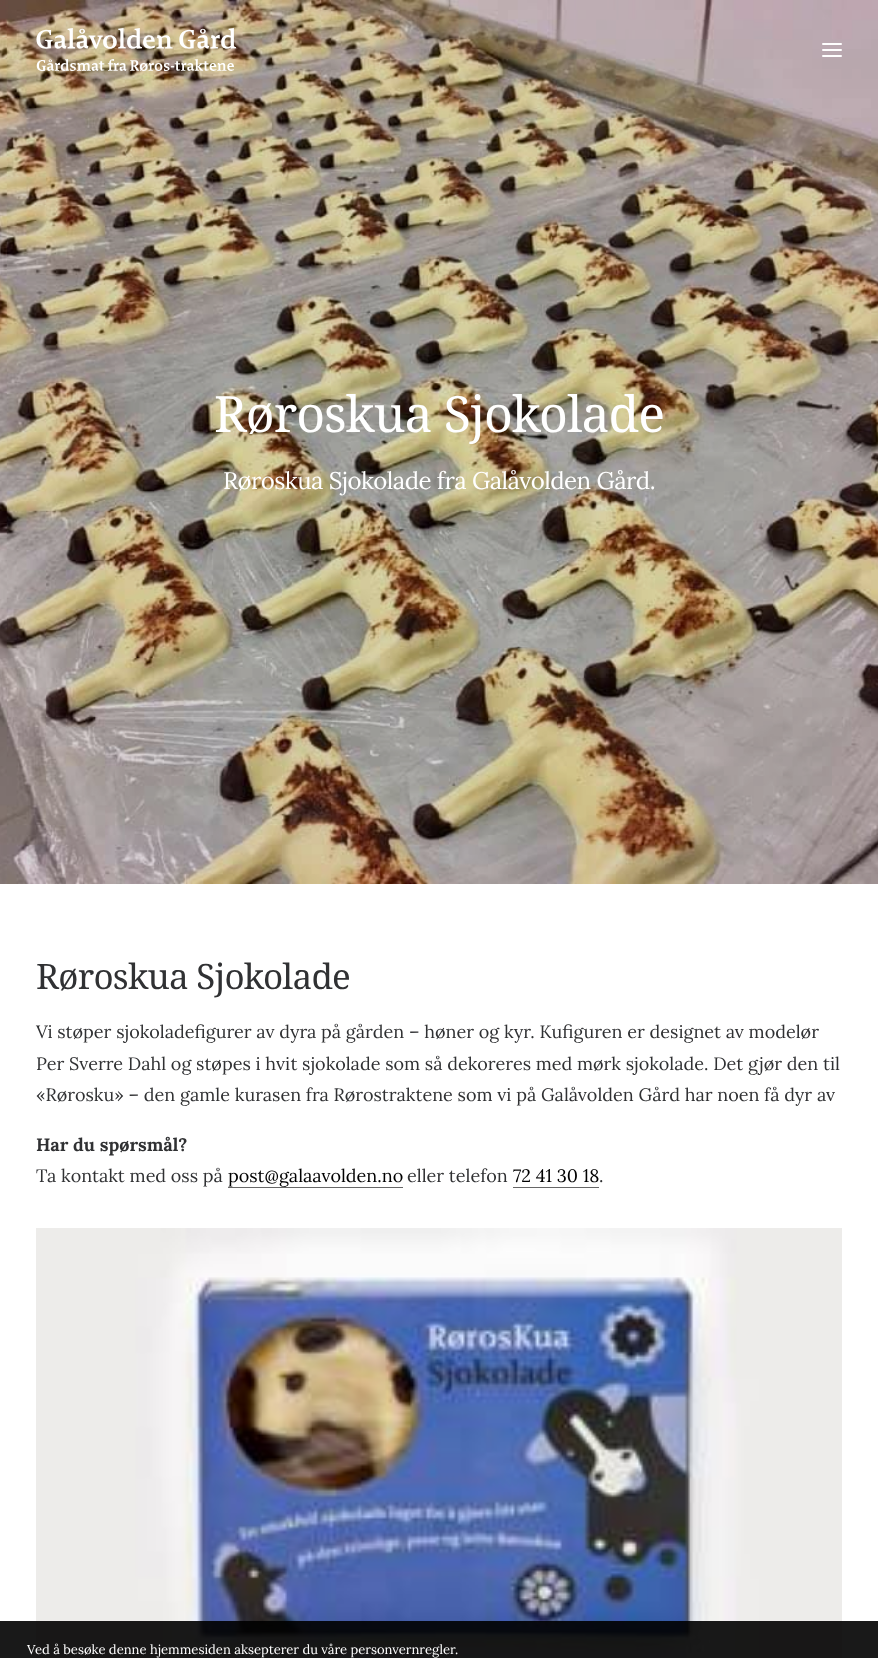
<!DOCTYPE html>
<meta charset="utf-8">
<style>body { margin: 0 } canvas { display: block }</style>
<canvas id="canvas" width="878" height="1658"></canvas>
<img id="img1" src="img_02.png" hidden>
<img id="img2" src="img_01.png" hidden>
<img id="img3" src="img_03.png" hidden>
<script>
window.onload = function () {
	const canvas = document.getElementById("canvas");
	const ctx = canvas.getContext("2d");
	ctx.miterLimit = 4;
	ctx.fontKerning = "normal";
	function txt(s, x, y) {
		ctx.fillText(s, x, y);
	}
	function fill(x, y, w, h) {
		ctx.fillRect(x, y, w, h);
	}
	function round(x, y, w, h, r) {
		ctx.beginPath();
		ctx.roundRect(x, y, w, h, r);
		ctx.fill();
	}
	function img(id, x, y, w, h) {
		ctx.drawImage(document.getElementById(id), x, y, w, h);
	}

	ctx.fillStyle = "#FFFFFF";
	fill(0, 0, 878, 1658);
	img("img1", 0, 0, 878, 884);
	img("img2", 36, 28, 201, 43);
	round(822, 49, 20, 2, 1);
	round(822, 43, 20, 2, 1);
	round(822, 55, 20, 2, 1);
	ctx.fillStyle = "#666666";
	fill(228, 1187, 175, 1);
	fill(513, 1187, 86, 1);
	img("img3", 36, 1228, 806, 430);
	ctx.fillStyle = "rgba(0, 0, 0, 0.9)";
	fill(0, 1621, 878, 37);
	ctx.letterSpacing = "-1px";
	ctx.font = "50px Droid Serif";
	ctx.fillStyle = "#FFFFFF";
	txt("Røroskua Sjokolade", 214, 432);
	ctx.letterSpacing = "-0.5px";
	ctx.font = "24px Lora";
	txt("Røroskua Sjokolade fra Galåvolden Gård.", 223, 489);
	ctx.letterSpacing = "-0.75px";
	ctx.font = "35px Droid Serif";
	ctx.fillStyle = "#303133";
	txt("Røroskua Sjokolade", 36, 989);
	ctx.letterSpacing = "0px";
	ctx.font = "18px Lora";
	txt("Vi støper sjokoladefigurer av dyra på gården – høner og kyr. Kufiguren er designet av modelør", 36, 1038);
	txt("Per Sverre Dahl og støpes i hvit sjokolade som så dekoreres med mørk sjokolade. Det gjør den til", 36, 1070);
	txt("«Rørosku» – den gamle kurasen fra Rørostraktene som vi på Galåvolden Gård har noen få dyr av", 36, 1101);
	ctx.font = "bold 18px Lora";
	txt("Har du spørsmål?", 36, 1151);
	ctx.font = "18px Lora";
	txt("Ta kontakt med oss på", 36, 1182);
	ctx.fillStyle = "#000000";
	txt("post@galaavolden.no", 228, 1182);
	ctx.fillStyle = "#303133";
	txt("eller telefon", 407, 1182);
	ctx.fillStyle = "#000000";
	txt("72 41 30 18", 513, 1182);
	ctx.fillStyle = "#303133";
	txt(".", 599, 1182);
	ctx.font = "13px Lora";
	ctx.fillStyle = "#FFFFFF";
	txt("Ved å besøke denne hjemmesiden aksepterer du våre personvernregler.", 27, 1654);
};
</script>
